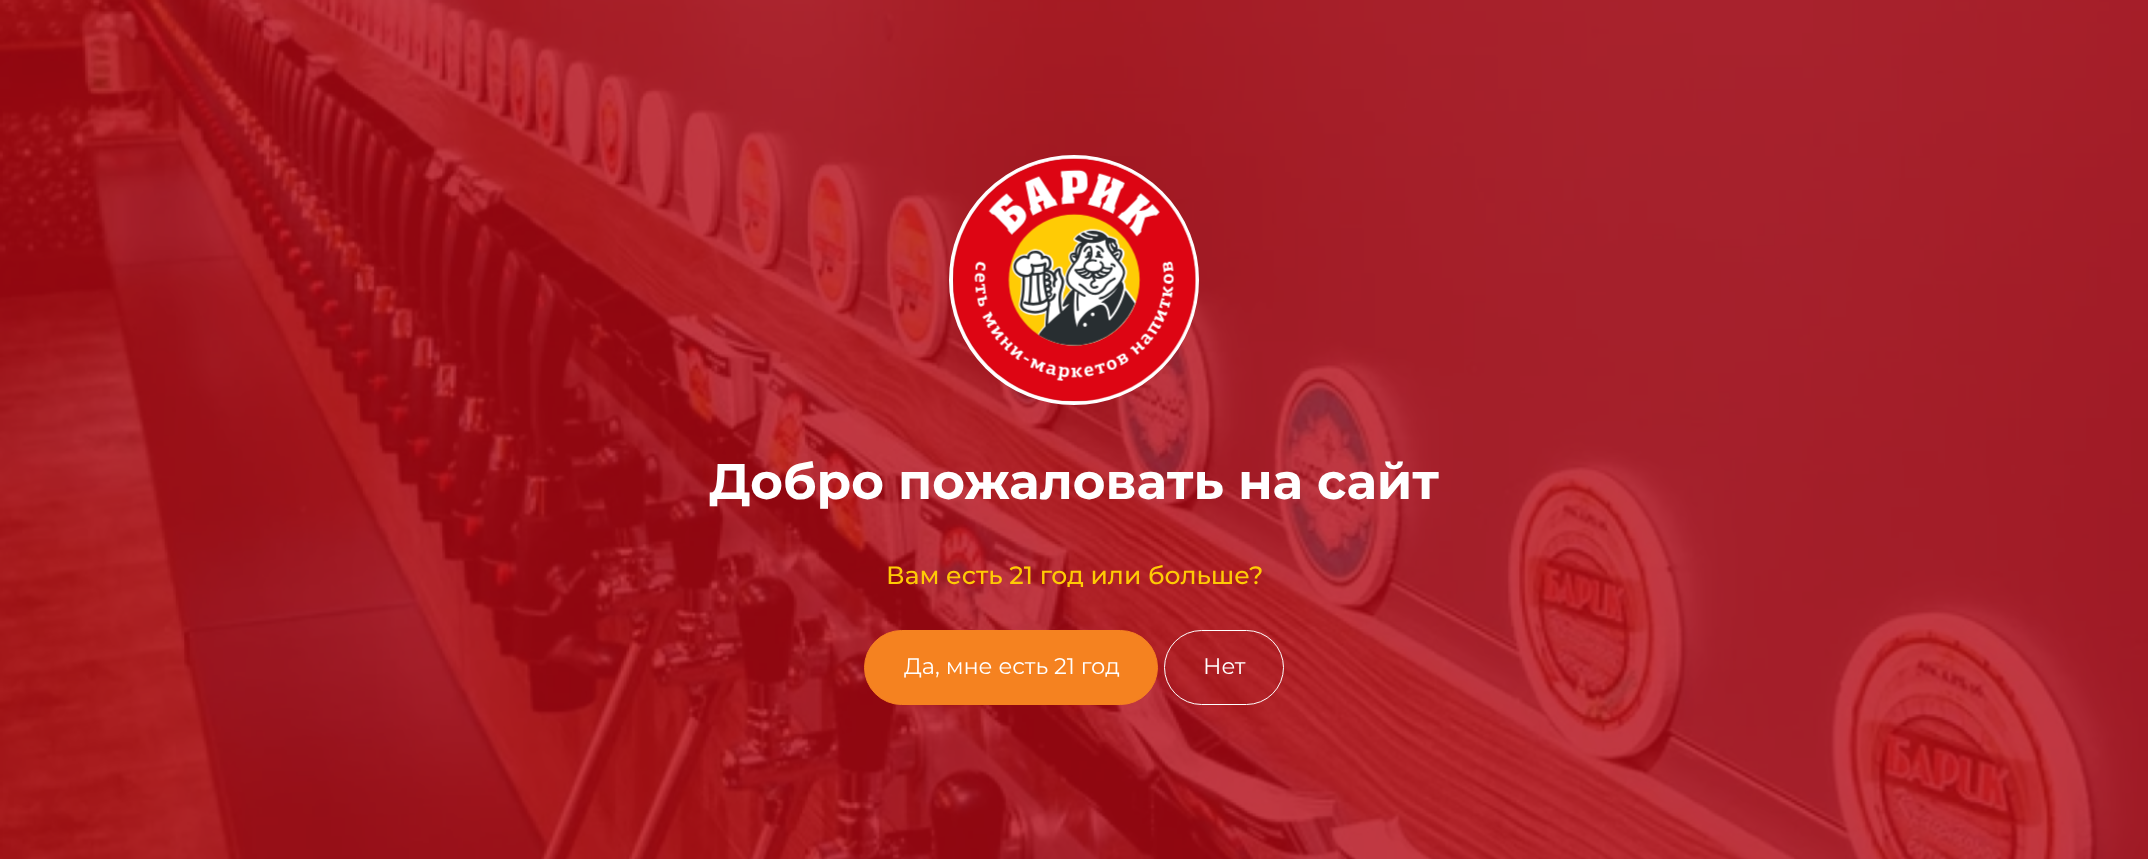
<!DOCTYPE html>
<meta charset="utf-8">
<style>body { margin: 0 } canvas { display: block }</style>
<canvas id="canvas" width="2148" height="859"></canvas>
<img id="img1" src="img_01.png" hidden>
<img id="img2" src="img_02.png" hidden>
<script>
window.onload = function () {
	const canvas = document.getElementById("canvas");
	const ctx = canvas.getContext("2d");
	ctx.miterLimit = 4;
	ctx.fontKerning = "normal";
	function txt(s, x, y) {
		ctx.fillText(s, x, y);
	}
	function fill(x, y, w, h) {
		ctx.fillRect(x, y, w, h);
	}
	function img(id, x, y, w, h) {
		ctx.drawImage(document.getElementById(id), x, y, w, h);
	}

	ctx.fillStyle = "#FFFFFF";
	fill(0, 0, 2148, 859);
	img("img1", 0, 0, 2148, 859);
	ctx.beginPath();
	ctx.arc(1074, 280, 123, 0, Math.PI * 2);
	ctx.strokeStyle = "#FFFFFF";
	ctx.lineWidth = 4;
	ctx.stroke();
	img("img2", 953, 158, 243, 244);
	ctx.fillStyle = "#F58220";
	ctx.beginPath();
	ctx.roundRect(864.5, 630.5, 293, 74, 37);
	ctx.fill();
	ctx.strokeStyle = "#F58220";
	ctx.lineWidth = 1;
	ctx.stroke();
	ctx.beginPath();
	ctx.roundRect(1164.5, 630.5, 119, 74, 37);
	ctx.strokeStyle = "#FFFFFF";
	ctx.stroke();
	ctx.font = "bold 50px Montserrat";
	ctx.fillStyle = "#FFFFFF";
	txt("Добро пожаловать на сайт", 709, 499);
	ctx.font = "500 25px Montserrat";
	ctx.fillStyle = "#FFCB05";
	txt("Вам есть 21 год или больше?", 886, 584);
	ctx.font = "22.5px Montserrat";
	ctx.fillStyle = "#FFFFFF";
	txt("Да, мне есть 21 год", 904, 674);
	txt("Нет", 1203, 674);
};
</script>
